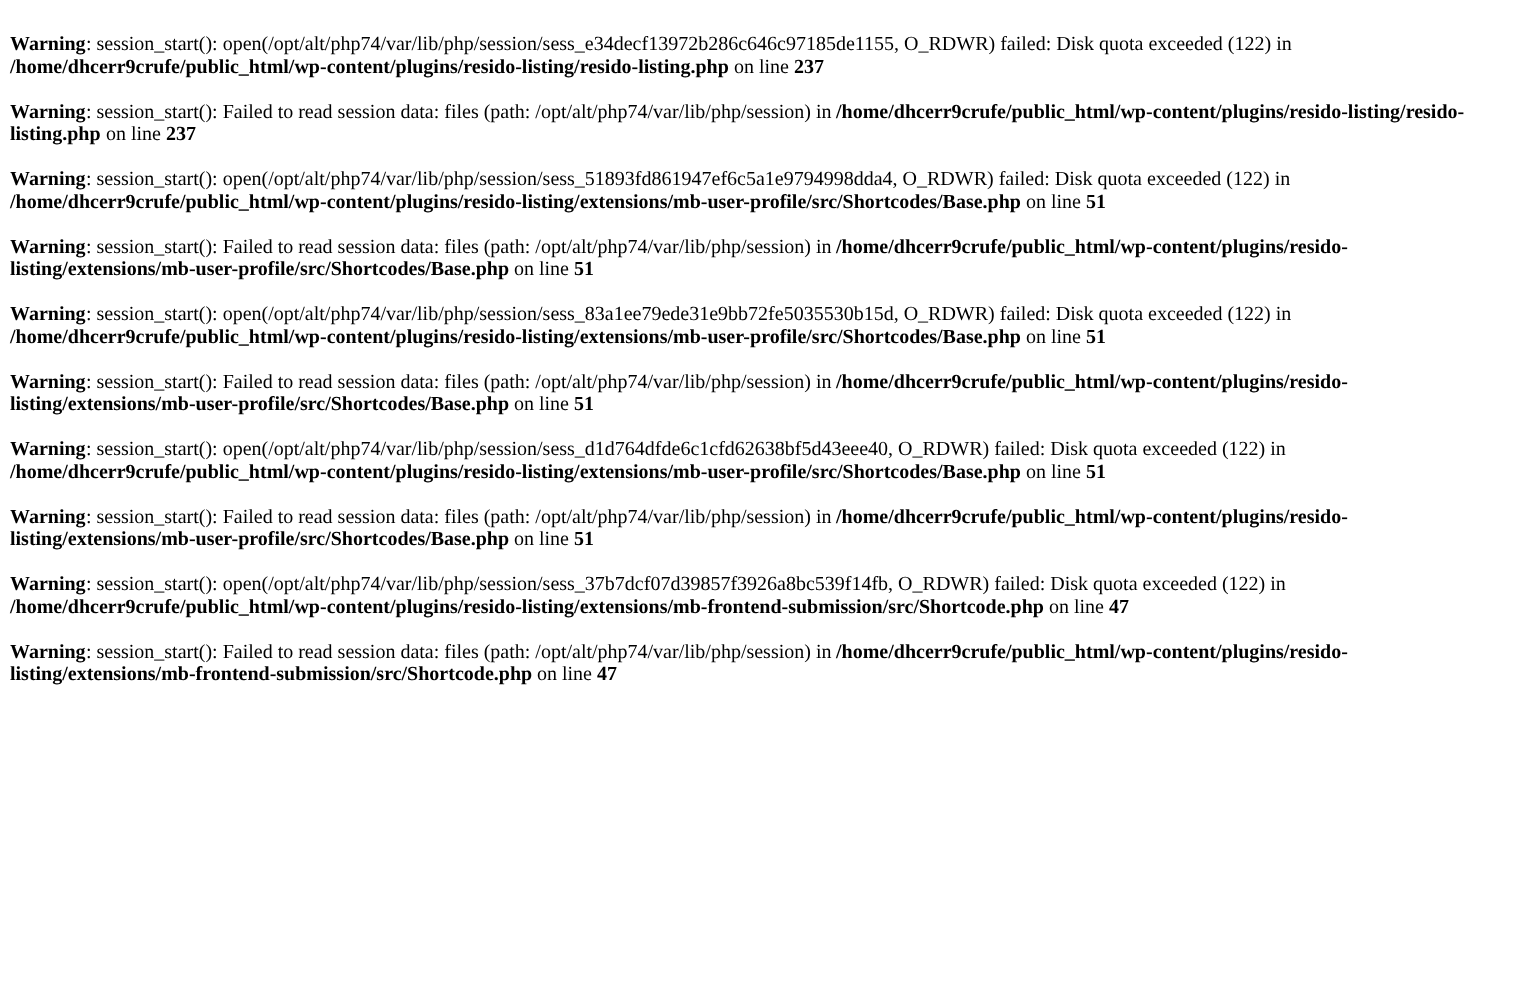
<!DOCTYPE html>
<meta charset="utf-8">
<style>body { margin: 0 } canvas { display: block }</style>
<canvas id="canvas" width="1522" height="1001"></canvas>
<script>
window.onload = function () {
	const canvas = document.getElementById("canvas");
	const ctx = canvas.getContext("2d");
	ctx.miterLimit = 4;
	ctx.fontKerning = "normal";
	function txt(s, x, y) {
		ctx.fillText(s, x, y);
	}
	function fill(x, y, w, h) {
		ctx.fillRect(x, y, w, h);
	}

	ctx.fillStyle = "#FFFFFF";
	fill(0, 0, 1522, 1001);
	ctx.font = "bold 20px Liberation Serif";
	ctx.fillStyle = "#000000";
	txt("Warning", 10, 50);
	ctx.font = "20px Liberation Serif";
	txt(": session_start(): open(/opt/alt/php74/var/lib/php/session/sess_e34decf13972b286c646c97185de1155, O_RDWR) failed: Disk quota exceeded (122) in", 86, 50);
	ctx.font = "bold 20px Liberation Serif";
	txt("/home/dhcerr9crufe/public_html/wp-content/plugins/resido-listing/resido-listing.php", 10, 73);
	ctx.font = "20px Liberation Serif";
	txt("on line", 734, 73);
	ctx.font = "bold 20px Liberation Serif";
	txt("237", 794, 73);
	txt("Warning", 10, 118);
	ctx.font = "20px Liberation Serif";
	txt(": session_start(): Failed to read session data: files (path: /opt/alt/php74/var/lib/php/session) in", 86, 118);
	ctx.font = "bold 20px Liberation Serif";
	txt("/home/dhcerr9crufe/public_html/wp-content/plugins/resido-listing/resido-", 836, 118);
	txt("listing.php", 10, 140);
	ctx.font = "20px Liberation Serif";
	txt("on line", 106, 140);
	ctx.font = "bold 20px Liberation Serif";
	txt("237", 166, 140);
	txt("Warning", 10, 185);
	ctx.font = "20px Liberation Serif";
	txt(": session_start(): open(/opt/alt/php74/var/lib/php/session/sess_51893fd861947ef6c5a1e9794998dda4, O_RDWR) failed: Disk quota exceeded (122) in", 86, 185);
	ctx.font = "bold 20px Liberation Serif";
	txt("/home/dhcerr9crufe/public_html/wp-content/plugins/resido-listing/extensions/mb-user-profile/src/Shortcodes/Base.php", 10, 208);
	ctx.font = "20px Liberation Serif";
	txt("on line", 1026, 208);
	ctx.font = "bold 20px Liberation Serif";
	txt("51", 1086, 208);
	txt("Warning", 10, 253);
	ctx.font = "20px Liberation Serif";
	txt(": session_start(): Failed to read session data: files (path: /opt/alt/php74/var/lib/php/session) in", 86, 253);
	ctx.font = "bold 20px Liberation Serif";
	txt("/home/dhcerr9crufe/public_html/wp-content/plugins/resido-", 836, 253);
	txt("listing/extensions/mb-user-profile/src/Shortcodes/Base.php", 10, 275);
	ctx.font = "20px Liberation Serif";
	txt("on line", 514, 275);
	ctx.font = "bold 20px Liberation Serif";
	txt("51", 574, 275);
	txt("Warning", 10, 320);
	ctx.font = "20px Liberation Serif";
	txt(": session_start(): open(/opt/alt/php74/var/lib/php/session/sess_83a1ee79ede31e9bb72fe5035530b15d, O_RDWR) failed: Disk quota exceeded (122) in", 86, 320);
	ctx.font = "bold 20px Liberation Serif";
	txt("/home/dhcerr9crufe/public_html/wp-content/plugins/resido-listing/extensions/mb-user-profile/src/Shortcodes/Base.php", 10, 343);
	ctx.font = "20px Liberation Serif";
	txt("on line", 1026, 343);
	ctx.font = "bold 20px Liberation Serif";
	txt("51", 1086, 343);
	txt("Warning", 10, 388);
	ctx.font = "20px Liberation Serif";
	txt(": session_start(): Failed to read session data: files (path: /opt/alt/php74/var/lib/php/session) in", 86, 388);
	ctx.font = "bold 20px Liberation Serif";
	txt("/home/dhcerr9crufe/public_html/wp-content/plugins/resido-", 836, 388);
	txt("listing/extensions/mb-user-profile/src/Shortcodes/Base.php", 10, 410);
	ctx.font = "20px Liberation Serif";
	txt("on line", 514, 410);
	ctx.font = "bold 20px Liberation Serif";
	txt("51", 574, 410);
	txt("Warning", 10, 455);
	ctx.font = "20px Liberation Serif";
	txt(": session_start(): open(/opt/alt/php74/var/lib/php/session/sess_d1d764dfde6c1cfd62638bf5d43eee40, O_RDWR) failed: Disk quota exceeded (122) in", 86, 455);
	ctx.font = "bold 20px Liberation Serif";
	txt("/home/dhcerr9crufe/public_html/wp-content/plugins/resido-listing/extensions/mb-user-profile/src/Shortcodes/Base.php", 10, 478);
	ctx.font = "20px Liberation Serif";
	txt("on line", 1026, 478);
	ctx.font = "bold 20px Liberation Serif";
	txt("51", 1086, 478);
	txt("Warning", 10, 523);
	ctx.font = "20px Liberation Serif";
	txt(": session_start(): Failed to read session data: files (path: /opt/alt/php74/var/lib/php/session) in", 86, 523);
	ctx.font = "bold 20px Liberation Serif";
	txt("/home/dhcerr9crufe/public_html/wp-content/plugins/resido-", 836, 523);
	txt("listing/extensions/mb-user-profile/src/Shortcodes/Base.php", 10, 545);
	ctx.font = "20px Liberation Serif";
	txt("on line", 514, 545);
	ctx.font = "bold 20px Liberation Serif";
	txt("51", 574, 545);
	txt("Warning", 10, 590);
	ctx.font = "20px Liberation Serif";
	txt(": session_start(): open(/opt/alt/php74/var/lib/php/session/sess_37b7dcf07d39857f3926a8bc539f14fb, O_RDWR) failed: Disk quota exceeded (122) in", 86, 590);
	ctx.font = "bold 20px Liberation Serif";
	txt("/home/dhcerr9crufe/public_html/wp-content/plugins/resido-listing/extensions/mb-frontend-submission/src/Shortcode.php", 10, 613);
	ctx.font = "20px Liberation Serif";
	txt("on line", 1049, 613);
	ctx.font = "bold 20px Liberation Serif";
	txt("47", 1109, 613);
	txt("Warning", 10, 658);
	ctx.font = "20px Liberation Serif";
	txt(": session_start(): Failed to read session data: files (path: /opt/alt/php74/var/lib/php/session) in", 86, 658);
	ctx.font = "bold 20px Liberation Serif";
	txt("/home/dhcerr9crufe/public_html/wp-content/plugins/resido-", 836, 658);
	txt("listing/extensions/mb-frontend-submission/src/Shortcode.php", 10, 680);
	ctx.font = "20px Liberation Serif";
	txt("on line", 537, 680);
	ctx.font = "bold 20px Liberation Serif";
	txt("47", 597, 680);
};
</script>
